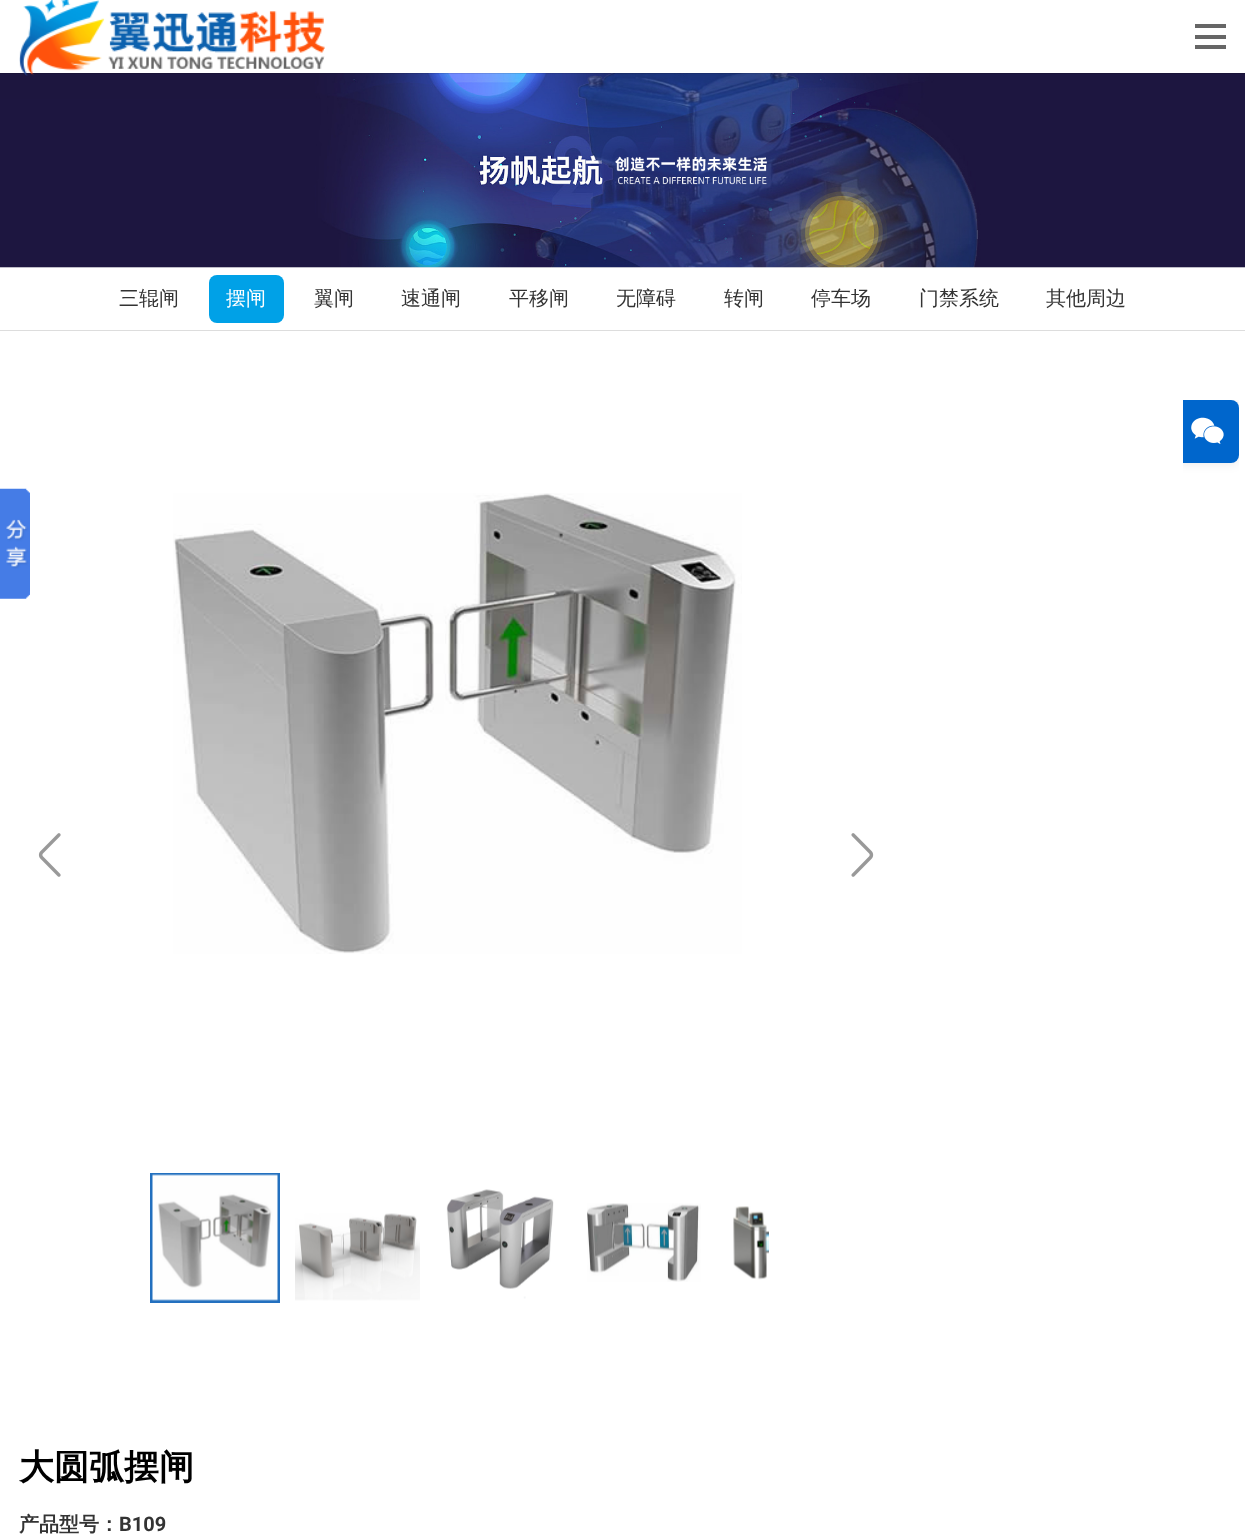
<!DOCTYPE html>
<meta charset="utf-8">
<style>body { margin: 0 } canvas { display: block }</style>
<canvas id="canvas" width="1245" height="1539"></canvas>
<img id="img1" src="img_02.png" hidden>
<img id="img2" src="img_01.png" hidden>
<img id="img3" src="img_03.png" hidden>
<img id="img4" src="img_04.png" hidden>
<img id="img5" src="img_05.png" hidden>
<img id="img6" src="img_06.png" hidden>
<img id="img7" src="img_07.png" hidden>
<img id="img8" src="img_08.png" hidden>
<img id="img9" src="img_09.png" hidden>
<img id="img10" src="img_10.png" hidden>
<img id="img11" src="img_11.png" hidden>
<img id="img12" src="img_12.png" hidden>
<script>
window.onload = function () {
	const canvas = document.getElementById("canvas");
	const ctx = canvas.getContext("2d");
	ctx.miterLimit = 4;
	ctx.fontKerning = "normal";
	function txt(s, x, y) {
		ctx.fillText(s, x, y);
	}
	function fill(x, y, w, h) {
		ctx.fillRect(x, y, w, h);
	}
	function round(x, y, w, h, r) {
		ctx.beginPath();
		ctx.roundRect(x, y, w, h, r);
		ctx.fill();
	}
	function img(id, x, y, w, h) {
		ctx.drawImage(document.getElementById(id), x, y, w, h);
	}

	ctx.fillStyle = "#F5F5F5";
	fill(0, 0, 1245, 1539);
	img("img1", 0, 73, 1245, 195);
	ctx.fillStyle = "rgba(0, 0, 0, 0.1)";
	ctx.filter = "blur(0.5px)";
	ctx.beginPath();
	ctx.rect(0, 1, 1245, 73);
	ctx.fill();
	ctx.filter = "none";
	ctx.fillStyle = "#FFFFFF";
	fill(0, 0, 1245, 73);
	img("img2", 19, 0, 306, 76);
	ctx.fillStyle = "#666666";
	fill(1195, 24, 31, 4);
	fill(1195, 45, 31, 4);
	fill(1195, 35, 31, 4);
	ctx.fillStyle = "#FFFFFF";
	fill(0, 268, 1245, 62);
	ctx.fillStyle = "#DDDDDD";
	fill(0, 330, 1245, 1);
	ctx.fillStyle = "#00A1E7";
	round(209, 275, 75, 48, 8);
	ctx.fillStyle = "#FFFFFF";
	fill(0, 331, 1245, 1208);
	ctx.save();
	ctx.beginPath();
	ctx.rect(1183, 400, 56, 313);
	ctx.clip();
	ctx.fillStyle = "rgba(0, 0, 0, 0.1)";
	ctx.filter = "blur(5.5px)";
	ctx.beginPath();
	ctx.roundRect(1176, 400, 63, 63, 8);
	ctx.fill();
	ctx.filter = "none";
	ctx.restore();
	ctx.save();
	ctx.beginPath();
	ctx.rect(1183, 400, 56, 313);
	ctx.clip();
	ctx.fillStyle = "#0066CC";
	round(1176, 400, 63, 63, 8);
	ctx.restore();
	img("img3", 1191, 417, 33, 27);
	img("img4", 0, 488, 30, 111);
	img("img5", 38, 833, 23, 44);
	img("img6", 173, 493, 569, 461);
	img("img7", 851, 833, 23, 44);
	ctx.fillStyle = "#2370BF";
	fill(150, 1173, 130, 130);
	img("img8", 152, 1174, 126, 127);
	img("img9", 295, 1213, 125, 88);
	img("img10", 446, 1189, 108, 110);
	img("img11", 587, 1203, 114, 79);
	img("img12", 733, 1206, 36, 74);
	ctx.font = "500 20px WenQuanYi Zen Hei";
	ctx.fillStyle = "#333333";
	txt("三辊闸", 119, 305);
	ctx.fillStyle = "#FFFFFF";
	txt("摆闸", 226, 305);
	ctx.fillStyle = "#333333";
	txt("翼闸", 314, 305);
	txt("速通闸", 401, 305);
	txt("平移闸", 509, 305);
	txt("无障碍", 616, 305);
	txt("转闸", 724, 305);
	txt("停车场", 811, 305);
	txt("门禁系统", 919, 305);
	txt("其他周边", 1046, 305);
	ctx.font = "bold 35px WenQuanYi Zen Hei";
	ctx.fillStyle = "#000000";
	txt("大圆弧摆闸", 19, 1479);
	ctx.font = "bold 20px WenQuanYi Zen Hei";
	ctx.fillStyle = "#333333";
	txt("产品型号：", 19, 1531);
	ctx.font = "bold 20px Roboto";
	txt("B109", 119, 1531);
};
</script>
